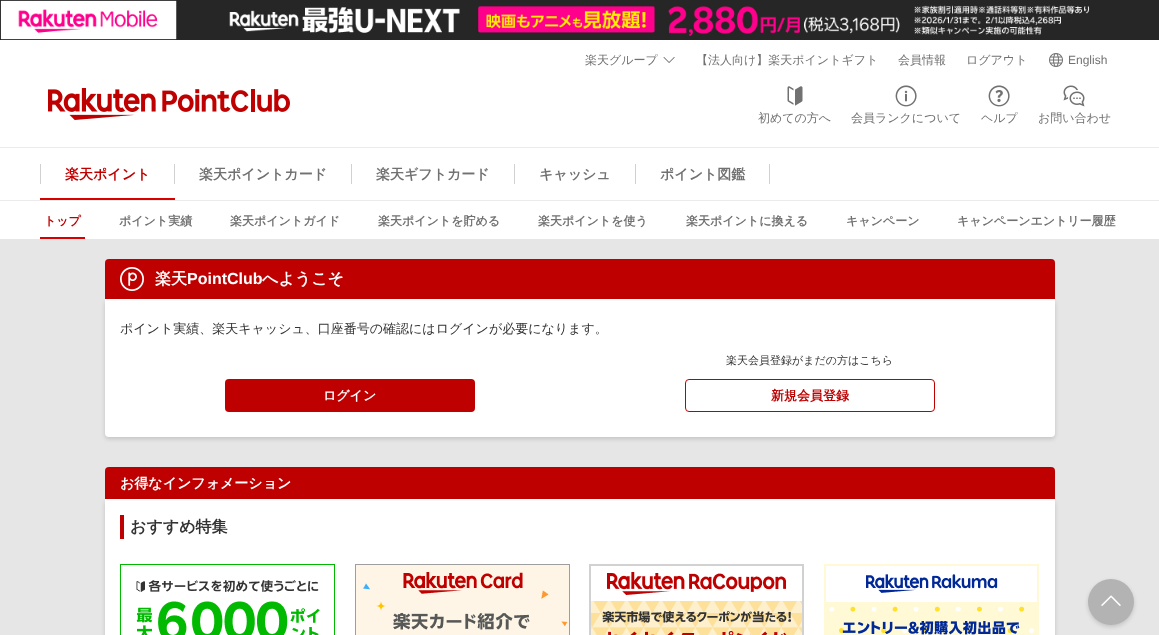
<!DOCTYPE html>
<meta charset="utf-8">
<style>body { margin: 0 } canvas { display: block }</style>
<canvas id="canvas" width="1159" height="635"></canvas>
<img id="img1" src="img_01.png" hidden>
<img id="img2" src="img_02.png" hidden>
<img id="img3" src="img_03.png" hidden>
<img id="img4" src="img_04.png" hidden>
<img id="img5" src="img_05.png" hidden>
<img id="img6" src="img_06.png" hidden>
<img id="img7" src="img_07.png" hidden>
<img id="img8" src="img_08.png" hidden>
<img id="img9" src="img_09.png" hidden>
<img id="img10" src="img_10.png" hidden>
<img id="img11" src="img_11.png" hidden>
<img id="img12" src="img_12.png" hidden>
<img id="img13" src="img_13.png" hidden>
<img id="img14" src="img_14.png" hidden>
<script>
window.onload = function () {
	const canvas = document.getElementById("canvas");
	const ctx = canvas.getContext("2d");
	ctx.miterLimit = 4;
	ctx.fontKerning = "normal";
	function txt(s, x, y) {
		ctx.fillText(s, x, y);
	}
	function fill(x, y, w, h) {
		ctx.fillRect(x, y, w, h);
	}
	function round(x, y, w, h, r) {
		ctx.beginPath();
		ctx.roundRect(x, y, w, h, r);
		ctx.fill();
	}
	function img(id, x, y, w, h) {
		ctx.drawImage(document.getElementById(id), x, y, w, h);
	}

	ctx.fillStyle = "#FFFFFF";
	fill(0, 0, 1159, 635);
	img("img1", 0, 0, 1159, 40);
	img("img2", 663, 57, 12, 6);
	img("img3", 1049, 53, 14, 14);
	ctx.fillStyle = "#EBEBEB";
	fill(0, 147, 1159, 1);
	img("img4", 48, 88, 242, 32);
	img("img5", 787, 86, 16, 20);
	img("img6", 895, 85, 22, 22);
	img("img7", 988, 85, 22, 22);
	img("img8", 1063, 85, 22, 22);
	fill(0, 200, 1159, 1);
	ctx.fillStyle = "#D80000";
	fill(40, 198, 135, 2);
	ctx.fillStyle = "#D1D1D1";
	fill(174, 164, 1, 20);
	fill(40, 164, 1, 20);
	fill(351, 164, 1, 20);
	fill(514, 164, 1, 20);
	fill(635, 164, 1, 20);
	fill(769, 164, 1, 20);
	ctx.fillStyle = "#D80000";
	fill(40, 237, 45, 2);
	ctx.fillStyle = "#E6E6E6";
	fill(0, 239, 1159, 396);
	ctx.fillStyle = "rgba(4, 0, 0, 0.15)";
	ctx.filter = "blur(2px)";
	ctx.beginPath();
	ctx.roundRect(105, 301, 950, 138, 4);
	ctx.fill();
	ctx.filter = "none";
	ctx.fillStyle = "#BF0000";
	ctx.beginPath();
	ctx.roundRect(105, 259, 950, 40, [4, 4, 0, 0]);
	ctx.fill();
	img("img9", 120, 267, 24, 24);
	ctx.fillStyle = "#FFFFFF";
	ctx.beginPath();
	ctx.roundRect(105, 299, 950, 138, [0, 0, 4, 4]);
	ctx.fill();
	ctx.fillStyle = "#BF0000";
	round(225, 379, 250, 33, 4);
	ctx.beginPath();
	ctx.roundRect(685.5, 379.5, 249, 32, 3.5);
	ctx.strokeStyle = "#BF0000";
	ctx.stroke();
	ctx.beginPath();
	ctx.roundRect(105, 467, 950, 32, [4, 4, 0, 0]);
	ctx.fill();
	ctx.fillStyle = "rgba(4, 0, 0, 0.15)";
	ctx.filter = "blur(2px)";
	ctx.beginPath();
	ctx.roundRect(105, 501, 950, 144, 4);
	ctx.fill();
	ctx.filter = "none";
	ctx.fillStyle = "#FFFFFF";
	fill(105, 499, 950, 136);
	ctx.fillStyle = "#BF0000";
	fill(120, 515, 4, 24);
	img("img10", 120, 564, 215, 71);
	img("img11", 355, 564, 215, 71);
	img("img12", 589, 564, 215, 71);
	img("img13", 824, 564, 215, 71);
	ctx.fillStyle = "rgba(4, 0, 0, 0.15)";
	ctx.filter = "blur(2px)";
	ctx.beginPath();
	ctx.roundRect(1088, 581, 46, 46, 23);
	ctx.fill();
	ctx.filter = "none";
	ctx.fillStyle = "#B3B3B3";
	ctx.beginPath();
	ctx.arc(1111, 602, 23, 0, Math.PI * 2);
	ctx.fill();
	img("img14", 1101, 595, 20, 11);
	ctx.font = "500 12px WenQuanYi Zen Hei";
	ctx.fillStyle = "#717171";
	txt("楽天グループ", 585, 64);
	txt("【法人向け】楽天ポイントギフト", 696, 64);
	txt("会員情報", 898, 64);
	txt("ログアウト", 966, 64);
	ctx.font = "12px Liberation Sans";
	txt("English", 1068, 64);
	ctx.font = "500 12px WenQuanYi Zen Hei";
	txt("初めての方へ", 758, 122);
	txt("会員ランクについて", 851, 122);
	txt("ヘルプ", 981, 122);
	txt("お問い合わせ", 1038, 122);
	ctx.font = "bold 14px WenQuanYi Zen Hei";
	ctx.fillStyle = "#BF0000";
	txt("楽天ポイント", 65, 179);
	ctx.fillStyle = "#717171";
	txt("楽天ポイントカード", 199, 179);
	txt("楽天ギフトカード", 376, 179);
	txt("キャッシュ", 539, 179);
	txt("ポイント図鑑", 660, 179);
	ctx.font = "bold 12px WenQuanYi Zen Hei";
	ctx.fillStyle = "#BF0000";
	txt("トップ", 44, 225);
	ctx.fillStyle = "#717171";
	txt("ポイント実績", 119, 225);
	txt("楽天ポイントガイド", 230, 225);
	txt("楽天ポイントを貯める", 378, 225);
	txt("楽天ポイントを使う", 538, 225);
	txt("楽天ポイントに換える", 686, 225);
	txt("キャンペーン", 846, 225);
	txt("キャンペーンエントリー履歴", 957, 225);
	ctx.font = "bold 16px WenQuanYi Zen Hei";
	ctx.fillStyle = "#FFFFFF";
	txt("楽天", 155, 284);
	ctx.font = "bold 16px Liberation Sans";
	txt("PointClub", 187, 284);
	ctx.font = "bold 16px WenQuanYi Zen Hei";
	txt("へようこそ", 262, 284);
	ctx.font = "500 13px WenQuanYi Zen Hei";
	ctx.fillStyle = "#333333";
	txt("ポイント実績、楽天キャッシュ、口座番号の確認にはログインが必要になります。", 120, 333);
	ctx.font = "bold 13px WenQuanYi Zen Hei";
	ctx.fillStyle = "#FFFFFF";
	txt("ログイン", 323, 400);
	ctx.font = "500 11px WenQuanYi Zen Hei";
	ctx.fillStyle = "#333333";
	txt("楽天会員登録がまだの方はこちら", 726, 364);
	ctx.font = "bold 13px WenQuanYi Zen Hei";
	ctx.fillStyle = "#BF0000";
	txt("新規会員登録", 771, 400);
	ctx.font = "bold 14px WenQuanYi Zen Hei";
	ctx.fillStyle = "#FFFFFF";
	txt("お得なインフォメーション", 120, 488);
	ctx.font = "bold 16px WenQuanYi Zen Hei";
	ctx.fillStyle = "#333333";
	txt("おすすめ特集", 130, 532);
};
</script>
